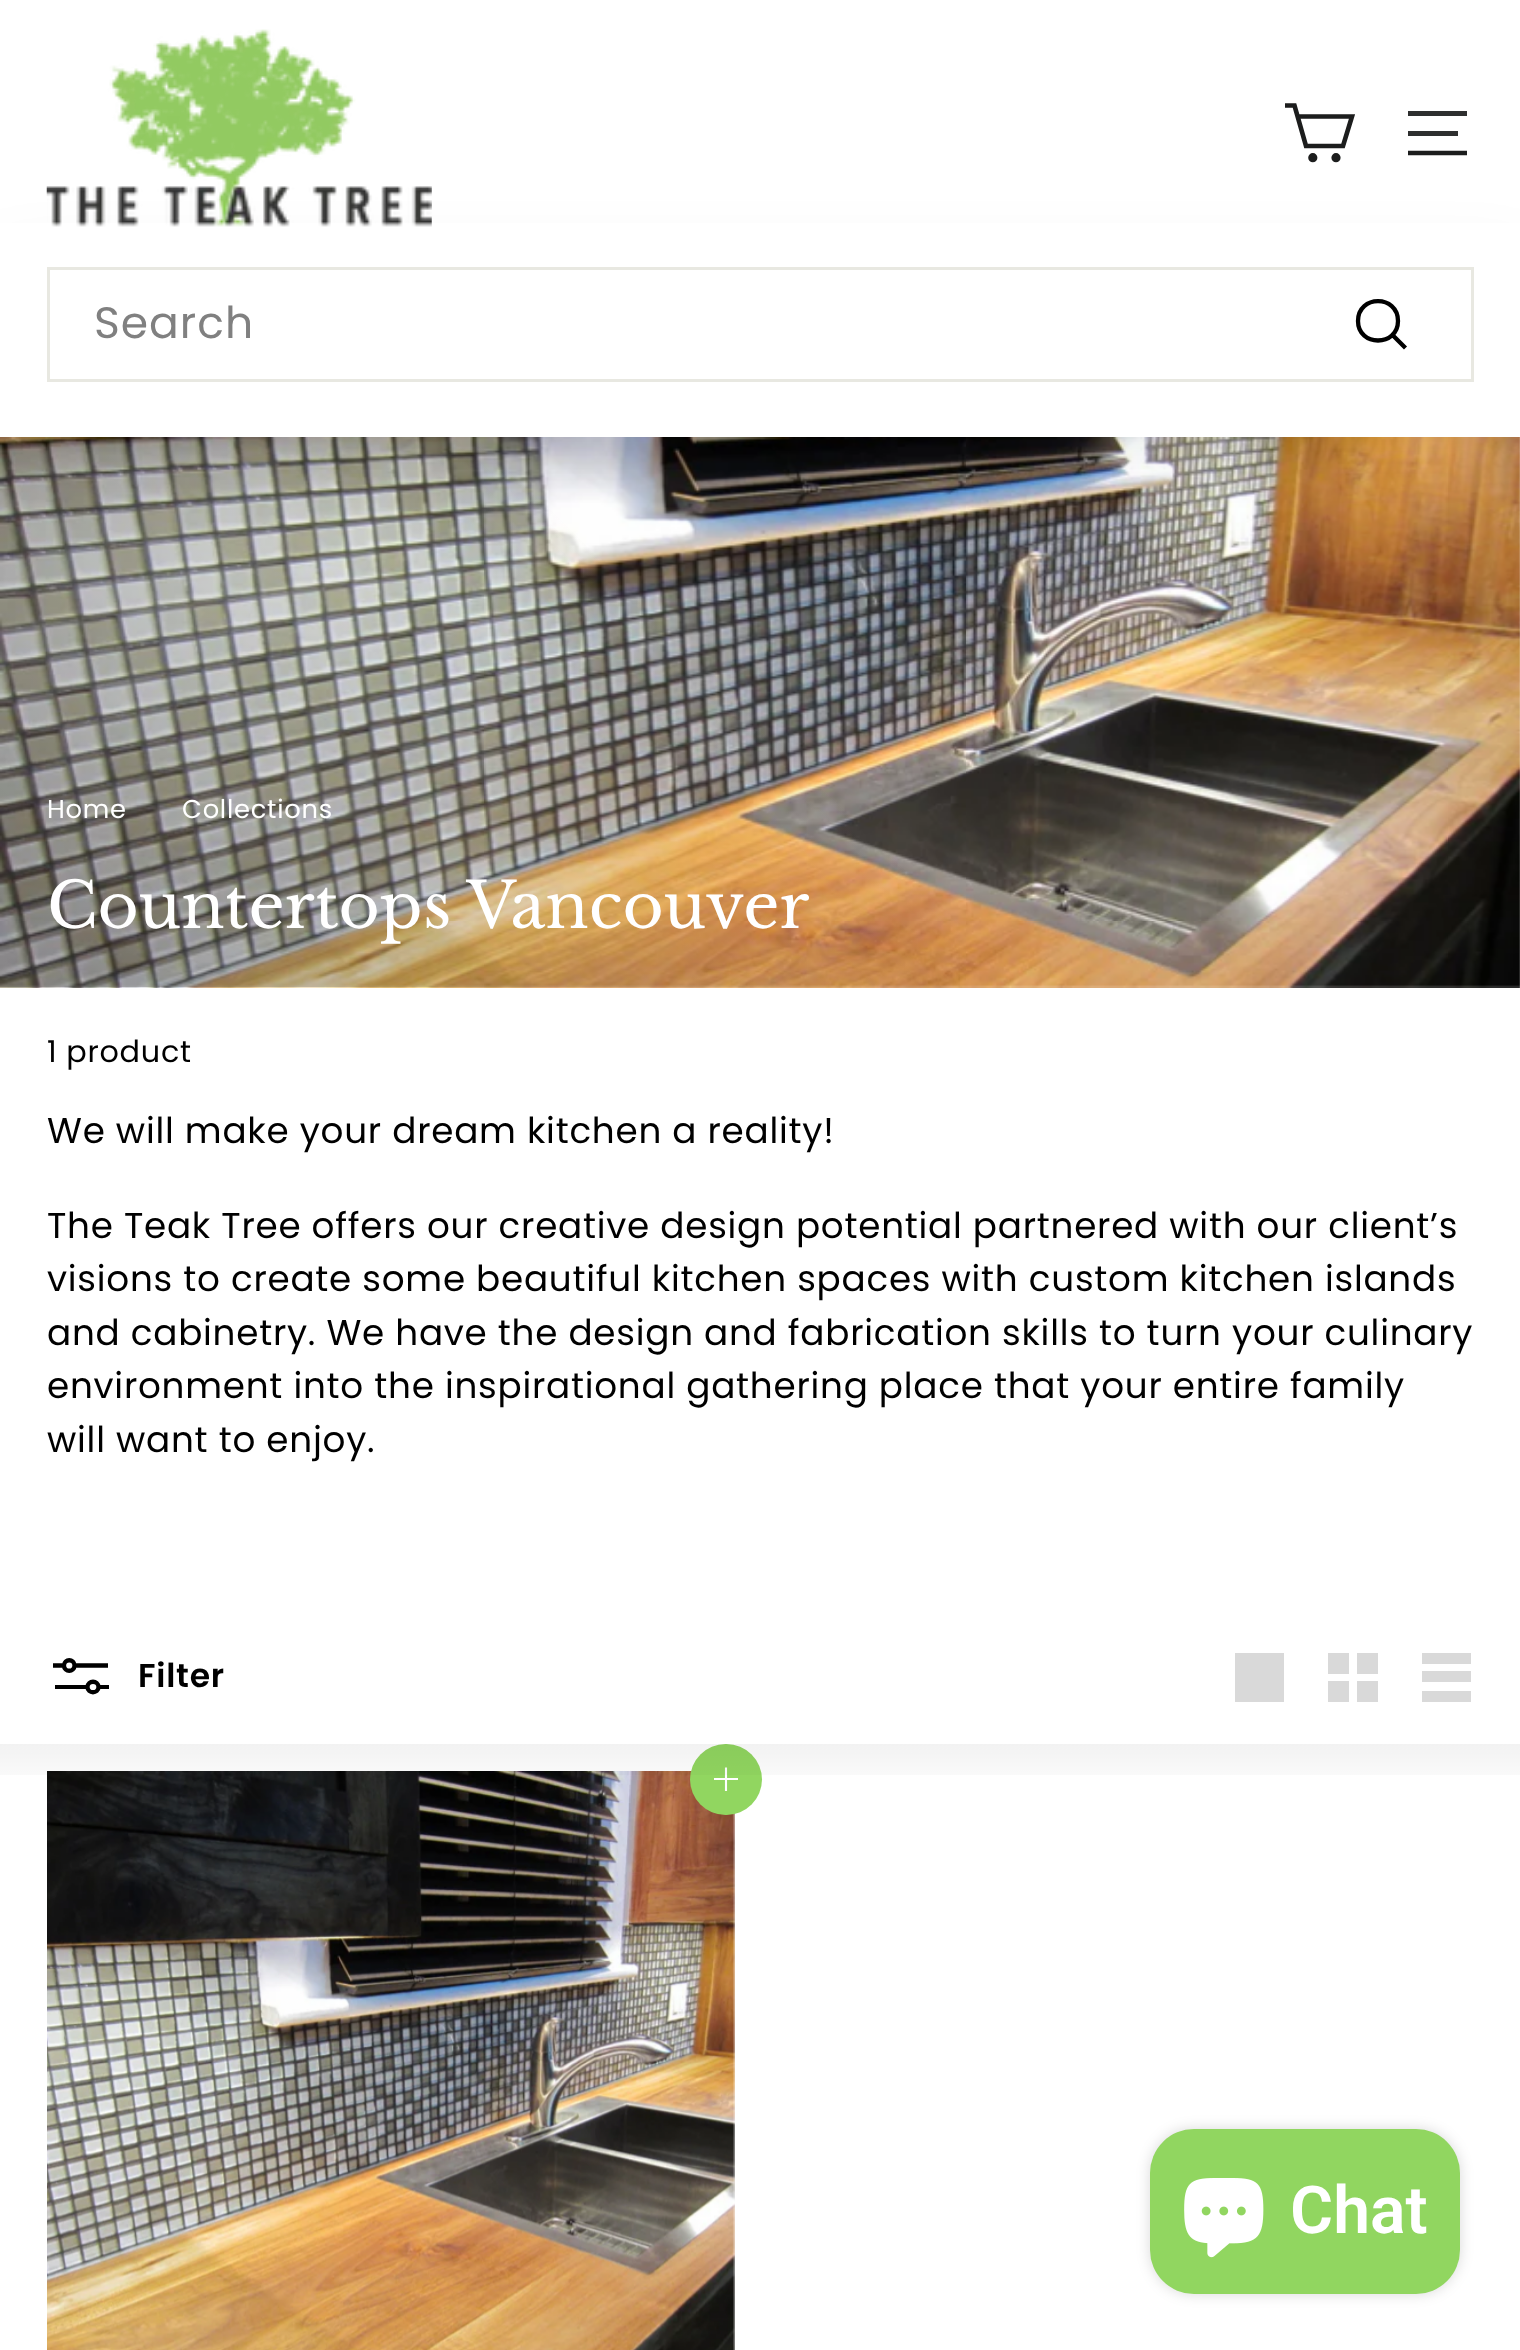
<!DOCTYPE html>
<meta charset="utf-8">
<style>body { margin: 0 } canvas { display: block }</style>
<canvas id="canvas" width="1520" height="2350"></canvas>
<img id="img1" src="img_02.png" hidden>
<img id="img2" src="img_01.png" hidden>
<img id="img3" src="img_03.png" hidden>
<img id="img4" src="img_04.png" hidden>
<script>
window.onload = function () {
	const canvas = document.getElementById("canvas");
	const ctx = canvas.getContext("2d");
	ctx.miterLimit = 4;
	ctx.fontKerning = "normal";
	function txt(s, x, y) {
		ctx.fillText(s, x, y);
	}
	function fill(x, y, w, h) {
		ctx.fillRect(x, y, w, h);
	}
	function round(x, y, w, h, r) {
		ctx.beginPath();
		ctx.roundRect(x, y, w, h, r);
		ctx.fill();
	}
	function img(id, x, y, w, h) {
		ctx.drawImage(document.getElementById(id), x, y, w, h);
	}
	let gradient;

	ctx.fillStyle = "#FFFFFF";
	fill(0, 0, 1520, 2350);
	img("img1", 0, 437, 1520, 551);
	gradient = ctx.createLinearGradient(243, 1230, 1278, 195);
	gradient.addColorStop(0, "rgba(0, 0, 0, 0.3)");
	gradient.addColorStop(0.5, "rgba(0, 0, 0, 0)");
	ctx.fillStyle = gradient;
	fill(0, 437, 960, 550);
	ctx.fillStyle = "rgba(0, 0, 0, 0.1)";
	ctx.filter = "blur(34.5px)";
	ctx.beginPath();
	ctx.rect(0, 267, 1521, 170);
	ctx.fill();
	ctx.filter = "none";
	ctx.fillStyle = "#FFFFFF";
	fill(0, 223, 1520, 214);
	img("img2", 46, 29, 386, 198);
	ctx.beginPath();
	ctx.moveTo(1297.5, 116.5);
	ctx.lineTo(1352, 116.5);
	ctx.lineTo(1343, 146);
	ctx.lineTo(1306, 146);
	ctx.lineTo(1294.5, 105.5);
	ctx.lineTo(1285, 105.5);
	ctx.strokeStyle = "#1C1D1D";
	ctx.lineWidth = 4.6;
	ctx.stroke();
	ctx.beginPath();
	ctx.arc(1312.8, 157.7, 2.3, 0, Math.PI * 2);
	ctx.stroke();
	ctx.beginPath();
	ctx.arc(1336, 157.7, 2.3, 0, Math.PI * 2);
	ctx.stroke();
	ctx.fillStyle = "#2E2F2F";
	fill(1408, 111, 59, 5);
	fill(1408, 131, 50, 5);
	ctx.beginPath();
	ctx.moveTo(1408, 153);
	ctx.lineTo(1467, 153);
	ctx.stroke();
	ctx.strokeStyle = "#E8E8E1";
	ctx.lineWidth = 3;
	ctx.strokeRect(48.5, 268.5, 1424, 112);
	ctx.beginPath();
	ctx.moveTo(1398, 321);
	ctx.bezierCurveTo(1398, 347, 1358, 347, 1358, 321);
	ctx.bezierCurveTo(1358, 294.5, 1398, 294.5, 1398, 321);
	ctx.closePath();
	ctx.moveTo(1405.5, 348);
	ctx.lineTo(1392.5, 335);
	ctx.strokeStyle = "#000000";
	ctx.lineWidth = 4.3;
	ctx.stroke();
	ctx.fillStyle = "#000000";
	fill(99, 1685, 10, 4);
	ctx.beginPath();
	ctx.moveTo(98.5, 1687);
	ctx.bezierCurveTo(98.5, 1694, 87.5, 1694, 87.5, 1687);
	ctx.bezierCurveTo(87.5, 1680, 98.5, 1680, 98.5, 1687);
	ctx.closePath();
	ctx.stroke();
	fill(55, 1685, 33, 4);
	ctx.beginPath();
	ctx.moveTo(64, 1665.5);
	ctx.lineTo(53, 1665.5);
	ctx.moveTo(64, 1665.5);
	ctx.bezierCurveTo(64, 1658.5, 74.5, 1658.5, 74.5, 1665.5);
	ctx.bezierCurveTo(74.5, 1672.5, 64, 1672.5, 64, 1665.5);
	ctx.closePath();
	ctx.moveTo(108, 1665.5);
	ctx.lineTo(74.5, 1665.5);
	ctx.stroke();
	ctx.fillStyle = "#D9D9D9";
	fill(1235, 1653, 49, 49);
	ctx.beginPath();
	ctx.moveTo(1328, 1653);
	ctx.lineTo(1349, 1653);
	ctx.lineTo(1349, 1674);
	ctx.lineTo(1328, 1674);
	ctx.closePath();
	ctx.moveTo(1357, 1653);
	ctx.lineTo(1378, 1653);
	ctx.lineTo(1378, 1674);
	ctx.lineTo(1357, 1674);
	ctx.closePath();
	ctx.moveTo(1328, 1681);
	ctx.lineTo(1349, 1681);
	ctx.lineTo(1349, 1702);
	ctx.lineTo(1328, 1702);
	ctx.closePath();
	ctx.moveTo(1357, 1681);
	ctx.lineTo(1378, 1681);
	ctx.lineTo(1378, 1702);
	ctx.lineTo(1357, 1702);
	ctx.closePath();
	ctx.fill();
	ctx.beginPath();
	ctx.moveTo(1422, 1653);
	ctx.lineTo(1471, 1653);
	ctx.lineTo(1471, 1664);
	ctx.lineTo(1422, 1664);
	ctx.closePath();
	ctx.moveTo(1422, 1671);
	ctx.lineTo(1471, 1671);
	ctx.lineTo(1471, 1682);
	ctx.lineTo(1422, 1682);
	ctx.closePath();
	ctx.moveTo(1422, 1691);
	ctx.lineTo(1471, 1691);
	ctx.lineTo(1471, 1702);
	ctx.lineTo(1422, 1702);
	ctx.closePath();
	ctx.fill();
	img("img3", 47, 1771, 688, 579);
	ctx.fillStyle = "#91D660";
	round(690, 1744, 72, 71, 35.5);
	ctx.beginPath();
	ctx.moveTo(726, 1767.5);
	ctx.lineTo(726, 1791);
	ctx.moveTo(738, 1779);
	ctx.lineTo(714, 1779);
	ctx.strokeStyle = "#FFFFFF";
	ctx.lineWidth = 2.1;
	ctx.stroke();
	gradient = ctx.createLinearGradient(760, 1744, 760, 1799);
	gradient.addColorStop(0, "rgba(0, 0, 0, 0.05)");
	gradient.addColorStop(1, "rgba(0, 0, 0, 0)");
	ctx.fillStyle = gradient;
	fill(0, 1744, 1520, 31);
	ctx.fillStyle = "rgba(0, 0, 0, 0.15)";
	ctx.filter = "blur(7px)";
	ctx.beginPath();
	ctx.roundRect(1150, 2129, 310, 165, 44);
	ctx.fill();
	ctx.filter = "none";
	ctx.fillStyle = "#91D660";
	round(1150, 2129, 310, 165, 44);
	img("img4", 1184, 2178, 80, 80);
	ctx.letterSpacing = "1px";
	ctx.font = "44px Poppins";
	ctx.fillStyle = "#808080";
	txt("Search", 94, 338);
	ctx.letterSpacing = "0.75px";
	ctx.font = "25.75px Poppins";
	ctx.fillStyle = "#FFFFFF";
	txt("Home", 47, 818);
	txt("Collections", 182, 818);
	ctx.letterSpacing = "0px";
	ctx.font = "63.1px Libre Baskerville";
	txt("Countertops Vancouver", 47, 928);
	ctx.letterSpacing = "0.75px";
	ctx.font = "30.25px Poppins";
	ctx.fillStyle = "#000000";
	txt("1 product", 47, 1062);
	ctx.font = "35.75px Poppins";
	txt("We will make your dream kitchen a reality!", 47, 1143);
	txt("The Teak Tree offers our creative design potential partnered with our client’s", 47, 1238);
	txt("visions to create some beautiful kitchen spaces with custom kitchen islands", 47, 1291);
	txt("and cabinetry. We have the design and fabrication skills to turn your culinary", 47, 1345);
	txt("environment into the inspirational gathering place that your entire family", 47, 1398);
	txt("will want to enjoy.", 47, 1452);
	ctx.font = "600 33px Poppins";
	txt("Filter", 138, 1687);
	ctx.letterSpacing = "0px";
	ctx.font = "600 66px Roboto";
	ctx.fillStyle = "#FFFFFF";
	txt("Chat", 1290, 2233);
};
</script>
